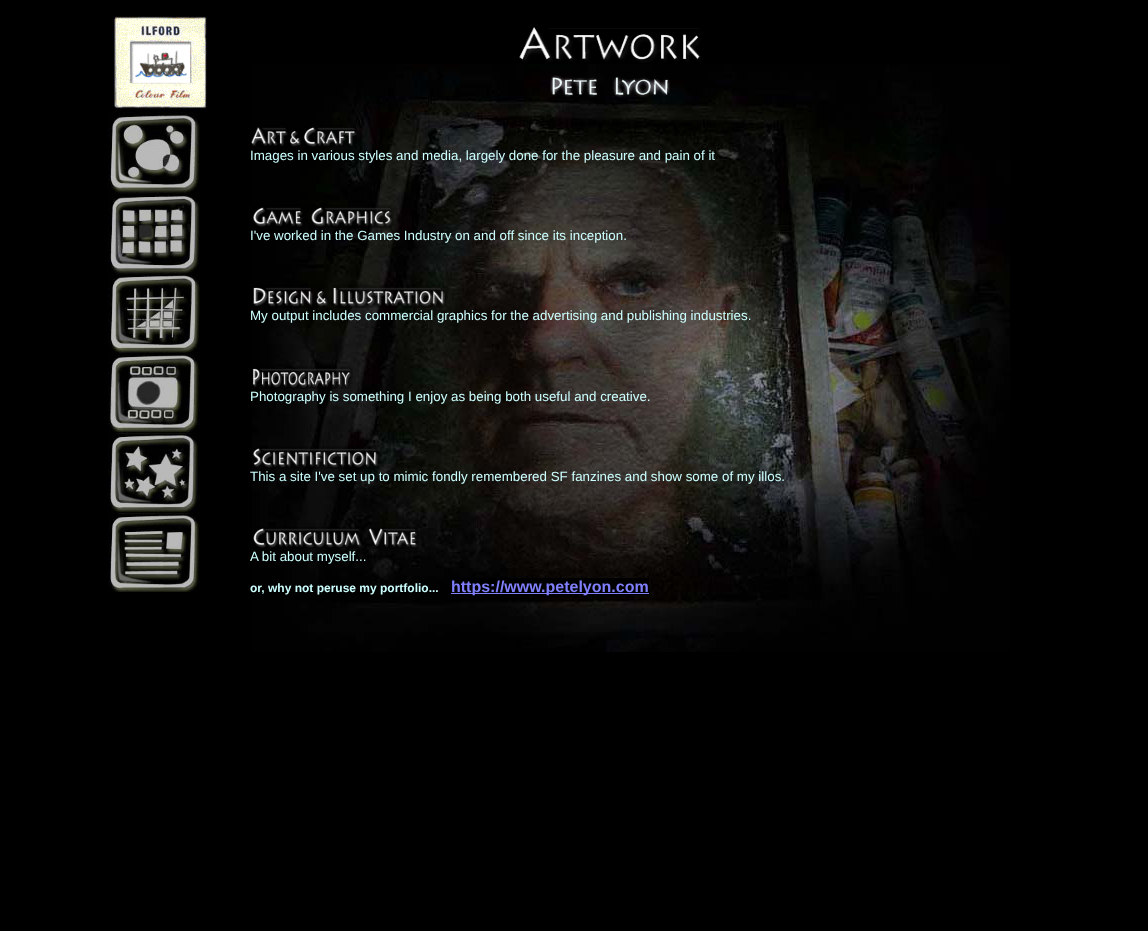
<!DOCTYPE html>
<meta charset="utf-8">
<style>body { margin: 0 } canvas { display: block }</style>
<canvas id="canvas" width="1148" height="931"></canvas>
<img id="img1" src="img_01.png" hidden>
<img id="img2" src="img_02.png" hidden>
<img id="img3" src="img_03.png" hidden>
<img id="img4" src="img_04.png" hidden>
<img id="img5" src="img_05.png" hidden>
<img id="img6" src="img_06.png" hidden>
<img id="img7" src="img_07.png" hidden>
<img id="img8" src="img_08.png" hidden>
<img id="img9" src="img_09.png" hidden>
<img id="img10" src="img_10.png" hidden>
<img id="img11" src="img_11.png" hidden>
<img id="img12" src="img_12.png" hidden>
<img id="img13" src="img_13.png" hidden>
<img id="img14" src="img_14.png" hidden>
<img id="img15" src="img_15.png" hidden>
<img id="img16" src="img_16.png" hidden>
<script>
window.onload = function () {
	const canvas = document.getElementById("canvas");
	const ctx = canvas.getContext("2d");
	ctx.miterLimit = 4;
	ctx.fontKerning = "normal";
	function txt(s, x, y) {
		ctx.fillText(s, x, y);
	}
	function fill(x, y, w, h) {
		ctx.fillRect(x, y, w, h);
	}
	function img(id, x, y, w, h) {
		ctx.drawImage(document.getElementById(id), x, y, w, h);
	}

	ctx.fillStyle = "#000000";
	fill(0, 0, 1148, 931);
	img("img1", 252, 64, 758, 588);
	img("img2", 114, 16, 93, 93);
	img("img3", 519, 27, 182, 36);
	img("img4", 550, 75, 120, 23);
	img("img5", 108, 112, 92, 80);
	img("img6", 251, 127, 106, 20);
	img("img7", 108, 192, 92, 80);
	img("img8", 253, 204, 142, 24);
	img("img9", 108, 272, 92, 80);
	img("img10", 253, 284, 195, 24);
	img("img11", 108, 352, 92, 80);
	img("img12", 252, 366, 101, 23);
	img("img13", 108, 432, 92, 80);
	img("img14", 253, 446, 128, 23);
	img("img15", 108, 512, 92, 80);
	img("img16", 253, 527, 165, 22);
	fill(442, 578, 2, 1);
	fill(460, 578, 189, 17);
	ctx.fillStyle = "#8080FF";
	fill(451, 593, 198, 1);
	ctx.font = "13.35px Liberation Sans";
	ctx.fillStyle = "#CCFFFF";
	txt("Images in various styles and media, largely done for the pleasure and pain of it", 250, 160);
	txt("I've worked in the Games Industry on and off since its inception.", 250, 240);
	txt("My output includes commercial graphics for the advertising and publishing industries.", 250, 320);
	txt("Photography is something I enjoy as being both useful and creative.", 250, 401);
	txt("This a site I've set up to mimic fondly remembered SF fanzines and show some of my illos.", 250, 481);
	txt("A bit about myself...", 250, 561);
	ctx.font = "bold 12px Liberation Sans";
	txt("or, why not peruse my portfolio...", 250, 592);
	ctx.font = "bold 16px Liberation Sans";
	ctx.fillStyle = "#8080FF";
	txt("https://www.petelyon.com", 451, 592);
};
</script>
